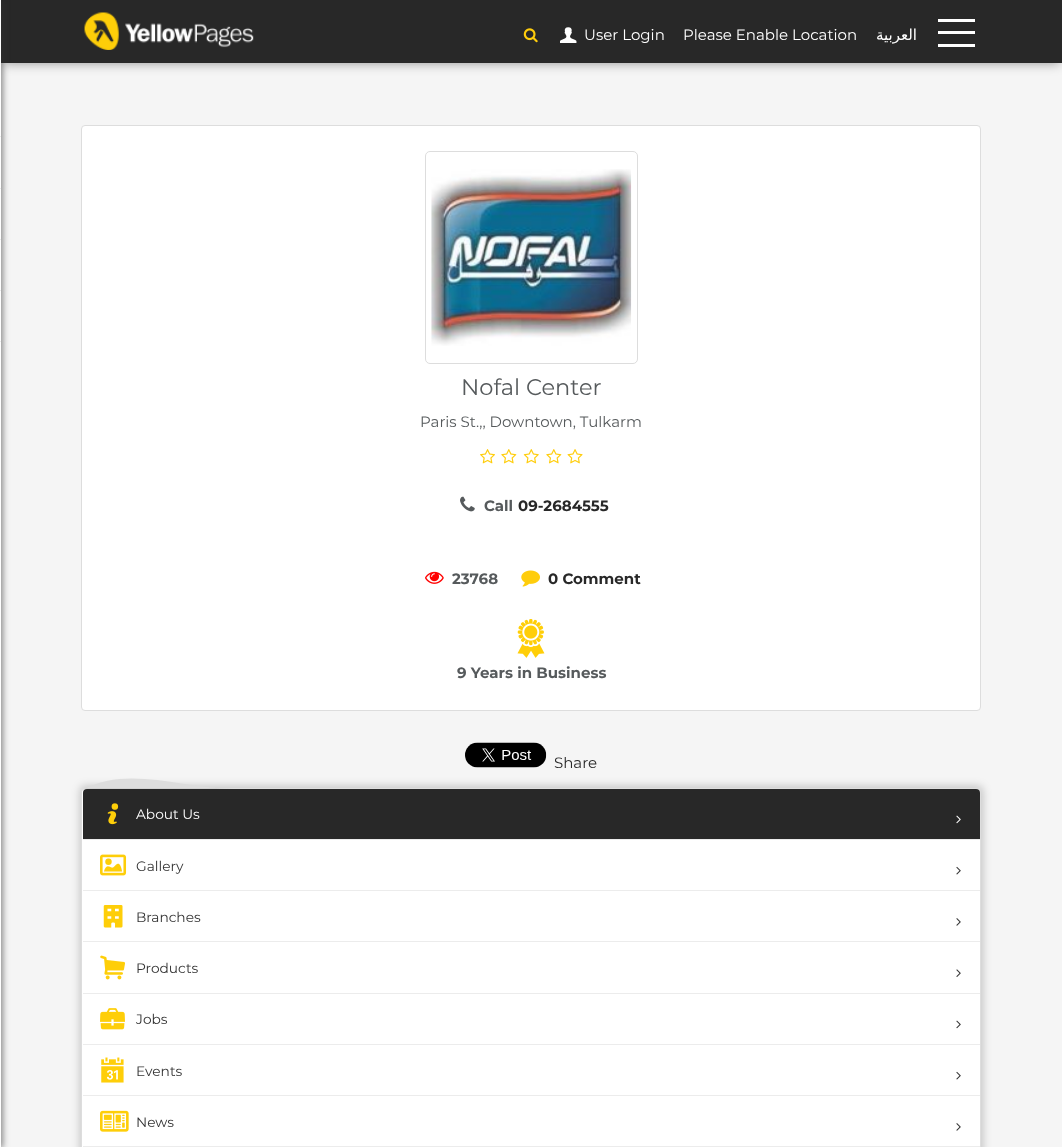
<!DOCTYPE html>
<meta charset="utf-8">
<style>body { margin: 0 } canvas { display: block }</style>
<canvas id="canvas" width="1062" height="1147"></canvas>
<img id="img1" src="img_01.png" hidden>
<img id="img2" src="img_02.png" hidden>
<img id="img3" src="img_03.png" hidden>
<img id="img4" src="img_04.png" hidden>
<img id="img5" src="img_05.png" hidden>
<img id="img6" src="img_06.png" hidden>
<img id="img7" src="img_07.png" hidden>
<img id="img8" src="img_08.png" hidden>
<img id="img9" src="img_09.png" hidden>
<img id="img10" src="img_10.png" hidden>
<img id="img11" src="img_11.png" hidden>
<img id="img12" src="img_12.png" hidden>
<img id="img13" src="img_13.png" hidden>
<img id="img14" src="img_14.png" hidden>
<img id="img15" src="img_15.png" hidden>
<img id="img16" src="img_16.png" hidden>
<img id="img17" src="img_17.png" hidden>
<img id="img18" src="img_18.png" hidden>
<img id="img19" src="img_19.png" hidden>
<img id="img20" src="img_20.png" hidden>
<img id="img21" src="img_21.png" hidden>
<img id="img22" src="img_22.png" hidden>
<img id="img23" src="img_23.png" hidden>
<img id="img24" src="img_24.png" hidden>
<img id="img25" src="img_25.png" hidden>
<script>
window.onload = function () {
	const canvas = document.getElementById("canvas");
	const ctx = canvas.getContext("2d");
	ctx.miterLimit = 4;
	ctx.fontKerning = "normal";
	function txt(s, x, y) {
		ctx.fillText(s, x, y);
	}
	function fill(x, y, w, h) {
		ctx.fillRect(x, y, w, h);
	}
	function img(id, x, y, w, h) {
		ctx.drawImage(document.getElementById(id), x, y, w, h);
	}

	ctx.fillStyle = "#F5F5F5";
	fill(0, 0, 1062, 1147);
	ctx.fillStyle = "rgba(0, 0, 0, 0.41)";
	ctx.filter = "blur(6px)";
	ctx.beginPath();
	ctx.rect(3, 5, 1057, 58);
	ctx.fill();
	ctx.filter = "none";
	ctx.fillStyle = "#282828";
	fill(1, 0, 1061, 63);
	img("img1", 84, 12, 170, 38);
	ctx.fillStyle = "rgba(50, 50, 50, 0.55)";
	ctx.filter = "blur(3px)";
	ctx.beginPath();
	ctx.rect(-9, 0, 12, 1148);
	ctx.fill();
	ctx.filter = "none";
	ctx.fillStyle = "#FFFFFF";
	fill(0, 0, 1, 1147);
	ctx.fillStyle = "#EDEDED";
	fill(0, 136, 1, 1);
	fill(0, 188, 1, 1);
	fill(0, 239, 1, 1);
	fill(0, 290, 1, 1);
	fill(0, 341, 1, 1);
	img("img2", 523, 28, 15, 15);
	img("img3", 560, 27, 17, 16);
	ctx.fillStyle = "#FFFFFF";
	fill(938, 31, 37, 3);
	fill(938, 19, 37, 3);
	fill(938, 44, 37, 3);
	ctx.beginPath();
	ctx.roundRect(81.5, 125.5, 899, 585, 3.5);
	ctx.fill();
	ctx.strokeStyle = "#DDDDDD";
	ctx.stroke();
	ctx.beginPath();
	ctx.roundRect(425.5, 151.5, 212, 212, 4.5);
	ctx.stroke();
	img("img4", 431, 169, 201, 177);
	img("img5", 480, 449, 15, 15);
	img("img6", 501, 449, 16, 15);
	img("img7", 523, 449, 16, 15);
	img("img6", 546, 449, 16, 15);
	img("img8", 567, 449, 16, 15);
	img("img9", 460, 496, 15, 16);
	img("img10", 425, 571, 19, 13);
	img("img11", 521, 570, 19, 17);
	img("img12", 517, 619, 28, 39);
	img("img13", 465, 742, 82, 26);
	ctx.fillStyle = "rgba(0, 0, 0, 0.2)";
	ctx.filter = "blur(4px)";
	ctx.beginPath();
	ctx.roundRect(80, 786, 903, 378, 5);
	ctx.fill();
	ctx.filter = "none";
	ctx.fillStyle = "#FFFFFF";
	ctx.beginPath();
	ctx.moveTo(85, 789);
	ctx.lineTo(978, 789);
	ctx.bezierCurveTo(979, 789, 980, 790, 980, 791);
	ctx.lineTo(980, 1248);
	ctx.bezierCurveTo(980, 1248, 979, 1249, 978, 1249);
	ctx.lineTo(85, 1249);
	ctx.bezierCurveTo(84, 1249, 82, 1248, 82, 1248);
	ctx.lineTo(82, 791);
	ctx.bezierCurveTo(82, 790, 84, 789, 85, 789);
	ctx.closePath();
	ctx.fill();
	ctx.fillStyle = "#DDDDDD";
	ctx.beginPath();
	ctx.moveTo(85, 788);
	ctx.lineTo(82, 789);
	ctx.lineTo(83, 790);
	ctx.bezierCurveTo(127, 765, 184, 789, 234, 789);
	ctx.lineTo(978, 789);
	ctx.lineTo(979, 790);
	ctx.lineTo(980, 789);
	ctx.lineTo(978, 788);
	ctx.closePath();
	ctx.fill();
	ctx.beginPath();
	ctx.moveTo(981, 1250);
	ctx.lineTo(981, 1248);
	ctx.lineTo(981, 791);
	ctx.lineTo(980, 789);
	ctx.lineTo(979, 790);
	ctx.lineTo(980, 791);
	ctx.lineTo(980, 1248);
	ctx.closePath();
	ctx.fill();
	ctx.beginPath();
	ctx.moveTo(81, 790);
	ctx.lineTo(82, 789);
	ctx.lineTo(83, 790);
	ctx.lineTo(82, 791);
	ctx.lineTo(82, 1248);
	ctx.lineTo(83, 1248);
	ctx.lineTo(82, 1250);
	ctx.lineTo(81, 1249);
	ctx.closePath();
	ctx.fill();
	ctx.fillStyle = "#ECECEC";
	fill(83, 839, 897, 1);
	ctx.fillStyle = "#282828";
	ctx.beginPath();
	ctx.roundRect(83, 789, 897, 50, [4, 4, 0, 0]);
	ctx.fill();
	img("img14", 107, 803, 12, 22);
	img("img15", 956, 815, 5, 9);
	ctx.fillStyle = "#ECECEC";
	fill(83, 890, 897, 1);
	img("img16", 100, 854, 27, 22);
	img("img17", 956, 866, 5, 9);
	fill(83, 941, 897, 1);
	img("img18", 103, 905, 20, 23);
	img("img19", 956, 918, 5, 8);
	fill(83, 993, 897, 1);
	img("img20", 100, 955, 25, 25);
	img("img21", 956, 969, 5, 8);
	fill(83, 1044, 897, 1);
	img("img22", 100, 1008, 25, 22);
	img("img23", 956, 1020, 5, 9);
	fill(83, 1095, 897, 1);
	img("img24", 101, 1057, 23, 26);
	img("img17", 956, 1071, 5, 9);
	fill(83, 1146, 897, 1);
	img("img25", 100, 1110, 29, 22);
	img("img19", 956, 1123, 5, 8);
	ctx.font = "15px Montserrat";
	ctx.fillStyle = "#FFFFFF";
	txt("User Login", 584, 40);
	txt("Please Enable Location", 683, 40);
	ctx.direction = "rtl";
	ctx.font = "15px DejaVu Sans";
	txt("العربية", 917, 40);
	ctx.direction = "ltr";
	ctx.font = "22.5px Montserrat";
	ctx.fillStyle = "#565A5C";
	txt("Nofal Center", 461, 395);
	ctx.font = "15px Montserrat";
	txt("Paris St.,, Downtown, Tulkarm", 420, 427);
	ctx.font = "bold 15px Montserrat";
	txt("Call", 484, 511);
	ctx.fillStyle = "#282828";
	txt("09-2684555", 518, 511);
	ctx.fillStyle = "#565A5C";
	txt("23768", 452, 584);
	ctx.fillStyle = "#282828";
	txt("0 Comment", 548, 584);
	ctx.fillStyle = "#565A5C";
	txt("9 Years in Business", 457, 678);
	ctx.font = "15px Montserrat";
	ctx.fillStyle = "#282828";
	txt("Share", 554, 768);
	ctx.font = "13.75px Montserrat";
	ctx.fillStyle = "#FFFFFF";
	txt("About Us", 136, 819);
	ctx.fillStyle = "#333333";
	txt("Gallery", 136, 871);
	txt("Branches", 136, 922);
	txt("Products", 136, 973);
	txt("Jobs", 136, 1024);
	txt("Events", 136, 1076);
	txt("News", 136, 1127);
};
</script>
